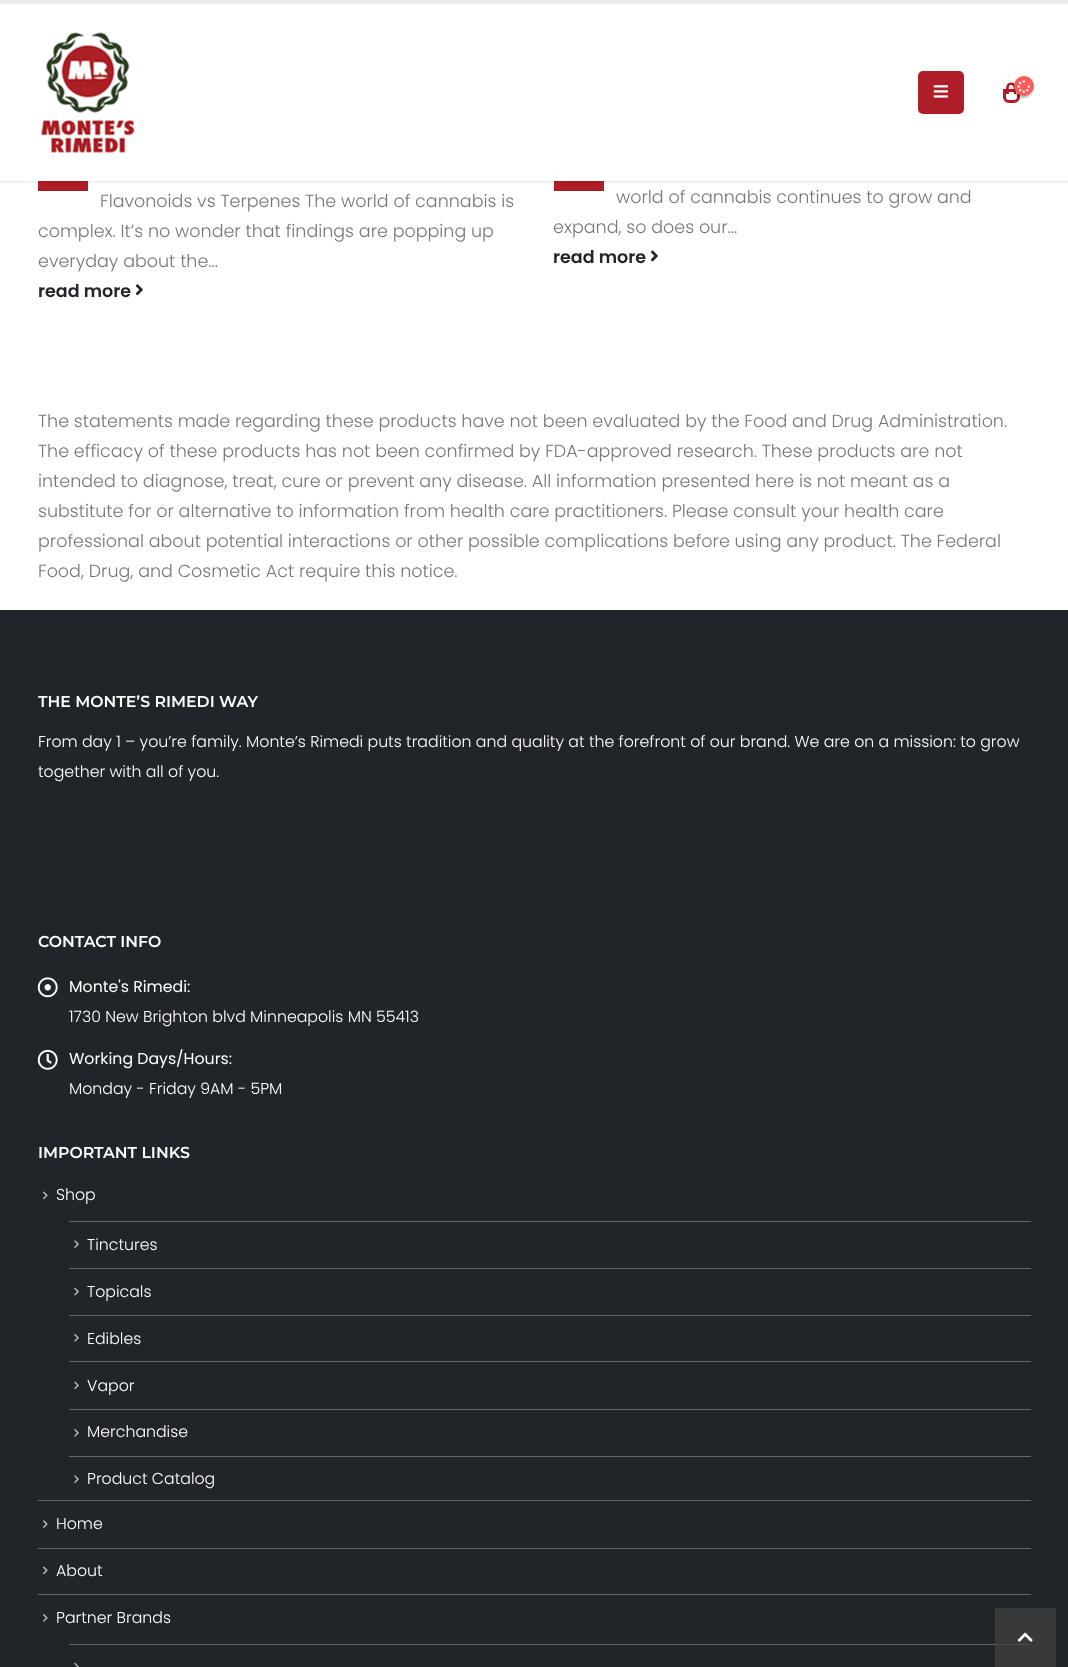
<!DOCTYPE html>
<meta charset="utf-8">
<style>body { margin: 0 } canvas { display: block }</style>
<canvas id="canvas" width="1068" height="1667"></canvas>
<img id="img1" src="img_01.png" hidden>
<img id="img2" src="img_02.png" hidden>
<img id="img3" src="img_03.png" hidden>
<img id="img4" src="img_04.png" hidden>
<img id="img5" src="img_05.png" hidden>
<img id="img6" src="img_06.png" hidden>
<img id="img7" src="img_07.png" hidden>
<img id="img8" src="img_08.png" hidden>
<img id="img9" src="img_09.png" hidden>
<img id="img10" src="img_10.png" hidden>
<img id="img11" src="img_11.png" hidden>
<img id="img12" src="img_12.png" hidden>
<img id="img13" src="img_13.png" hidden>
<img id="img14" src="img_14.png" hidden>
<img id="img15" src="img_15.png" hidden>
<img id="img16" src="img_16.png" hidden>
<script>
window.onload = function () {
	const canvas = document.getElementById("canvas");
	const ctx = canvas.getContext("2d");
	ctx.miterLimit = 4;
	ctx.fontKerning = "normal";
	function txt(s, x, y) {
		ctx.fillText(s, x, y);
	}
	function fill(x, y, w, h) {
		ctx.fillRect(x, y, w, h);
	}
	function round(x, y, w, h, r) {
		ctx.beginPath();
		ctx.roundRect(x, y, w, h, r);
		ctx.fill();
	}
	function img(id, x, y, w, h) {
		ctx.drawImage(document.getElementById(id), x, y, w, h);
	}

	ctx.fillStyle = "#FFFFFF";
	fill(0, 0, 1068, 1667);
	ctx.fillStyle = "#AF1E28";
	fill(38, 181, 50, 9);
	fill(554, 181, 50, 9);
	ctx.fillStyle = "rgba(0, 0, 0, 0.06)";
	ctx.beginPath();
	ctx.moveTo(0, 181);
	ctx.lineTo(0, 183);
	ctx.lineTo(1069, 183);
	ctx.lineTo(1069, 1);
	ctx.lineTo(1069, 181);
	ctx.closePath();
	ctx.fill();
	ctx.fillStyle = "#EDEDED";
	fill(0, 0, 1068, 4);
	img("img1", 41, 32, 94, 121);
	ctx.fillStyle = "#AF1E28";
	round(918, 71, 46, 43, 5);
	img("img2", 933, 85, 15, 13);
	ctx.beginPath();
	ctx.roundRect(1004.5, 90.5, 14, 11, [0, 0, 4.5, 4.5]);
	ctx.strokeStyle = "#AF1E28";
	ctx.lineWidth = 3;
	ctx.stroke();
	ctx.beginPath();
	ctx.moveTo(1011, 82.5);
	ctx.bezierCurveTo(1017.5, 82.5, 1016, 89.5, 1016, 94);
	ctx.lineTo(1006, 94);
	ctx.bezierCurveTo(1006, 89.5, 1005, 82.5, 1011, 82.5);
	ctx.closePath();
	ctx.moveTo(1011, 85);
	ctx.bezierCurveTo(1015, 85, 1014, 91.5, 1014, 94);
	ctx.lineTo(1009, 94);
	ctx.bezierCurveTo(1009, 91.5, 1007.5, 85, 1011, 85);
	ctx.closePath();
	ctx.fill("evenodd");
	ctx.fillStyle = "rgba(0, 0, 0, 0.3)";
	ctx.filter = "blur(1px)";
	ctx.beginPath();
	ctx.roundRect(1013, 78, 20, 20, 10);
	ctx.fill();
	ctx.filter = "none";
	ctx.fillStyle = "#FF5B5B";
	ctx.beginPath();
	ctx.arc(1024, 86, 10, 0, Math.PI * 2);
	ctx.fill();
	img("img3", 1017, 80, 13, 13);
	ctx.fillStyle = "#A31C25";
	fill(38, 190, 50, 1);
	img("img4", 135, 284, 8, 12);
	fill(554, 190, 50, 1);
	img("img5", 650, 250, 8, 12);
	ctx.fillStyle = "#212529";
	fill(0, 610, 1068, 1057);
	ctx.fillStyle = "#38393A";
	fill(995, 1608, 61, 59);
	img("img6", 37, 977, 21, 21);
	img("img7", 37, 1049, 21, 21);
	img("img8", 43, 1191, 5, 9);
	ctx.fillStyle = "#646669";
	fill(69, 1221, 962, 1);
	img("img9", 74, 1240, 5, 8);
	fill(69, 1268, 962, 1);
	img("img10", 74, 1287, 5, 9);
	fill(69, 1315, 962, 1);
	img("img11", 74, 1334, 5, 8);
	fill(69, 1361, 962, 1);
	img("img12", 74, 1381, 5, 9);
	fill(69, 1409, 962, 1);
	img("img11", 74, 1429, 5, 8);
	fill(69, 1456, 962, 1);
	img("img9", 74, 1475, 5, 8);
	fill(38, 1500, 993, 1);
	img("img13", 43, 1520, 5, 8);
	fill(38, 1548, 993, 1);
	img("img8", 43, 1566, 5, 9);
	fill(38, 1594, 993, 1);
	img("img14", 43, 1614, 5, 8);
	fill(69, 1644, 926, 1);
	ctx.fillStyle = "#494A4A";
	fill(995, 1644, 36, 1);
	img("img15", 74, 1662, 5, 5);
	img("img16", 1017, 1632, 16, 10);
	ctx.font = "300 17.5px Poppins";
	ctx.fillStyle = "#777777";
	txt("Flavonoids vs Terpenes The world of cannabis is", 100, 207);
	txt("complex. It’s no wonder that findings are popping up", 38, 237);
	txt("everyday about the...", 38, 267);
	ctx.font = "600 17.5px Poppins";
	ctx.fillStyle = "#222529";
	txt("read more", 38, 297);
	ctx.font = "300 17.5px Poppins";
	ctx.fillStyle = "#777777";
	txt("world of cannabis continues to grow and", 616, 203);
	txt("expand, so does our...", 553, 233);
	ctx.font = "600 17.5px Poppins";
	ctx.fillStyle = "#222529";
	txt("read more", 553, 263);
	ctx.font = "300 17.5px Poppins";
	ctx.fillStyle = "#777777";
	txt("The statements made regarding these products have not been evaluated by the Food and Drug Administration.", 38, 427);
	txt("The efficacy of these products has not been confirmed by FDA-approved research. These products are not", 38, 457);
	txt("intended to diagnose, treat, cure or prevent any disease. All information presented here is not meant as a", 38, 487);
	txt("substitute for or alternative to information from health care practitioners. Please consult your health care", 38, 517);
	txt("professional about potential interactions or other possible complications before using any product. The Federal", 38, 547);
	txt("Food, Drug, and Cosmetic Act require this notice.", 38, 577);
	ctx.font = "600 15.75px Montserrat";
	ctx.fillStyle = "#FFFFFF";
	txt("THE MONTE’S RIMEDI WAY", 38, 707);
	ctx.font = "300 15.75px Poppins";
	txt("From day 1 – you’re family. Monte’s Rimedi puts tradition and quality at the forefront of our brand. We are on a mission: to grow", 38, 747);
	txt("together with all of you.", 38, 777);
	ctx.font = "600 15.75px Montserrat";
	txt("CONTACT INFO", 38, 947);
	ctx.font = "15.75px Poppins";
	txt("Monte's Rimedi:", 69, 992);
	ctx.font = "300 15.75px Poppins";
	txt("1730 New Brighton blvd Minneapolis MN 55413", 69, 1022);
	ctx.font = "15.75px Poppins";
	txt("Working Days/Hours:", 69, 1064);
	ctx.font = "300 15.75px Poppins";
	txt("Monday - Friday 9AM - 5PM", 69, 1094);
	ctx.font = "600 15.75px Montserrat";
	txt("IMPORTANT LINKS", 38, 1158);
	ctx.font = "300 15.75px Poppins";
	txt("Shop", 56, 1200);
	txt("Tinctures", 87, 1250);
	txt("Topicals", 87, 1297);
	txt("Edibles", 87, 1344);
	txt("Vapor", 87, 1391);
	txt("Merchandise", 87, 1437);
	txt("Product Catalog", 87, 1484);
	txt("Home", 56, 1529);
	txt("About", 56, 1576);
	txt("Partner Brands", 56, 1623);
};
</script>
